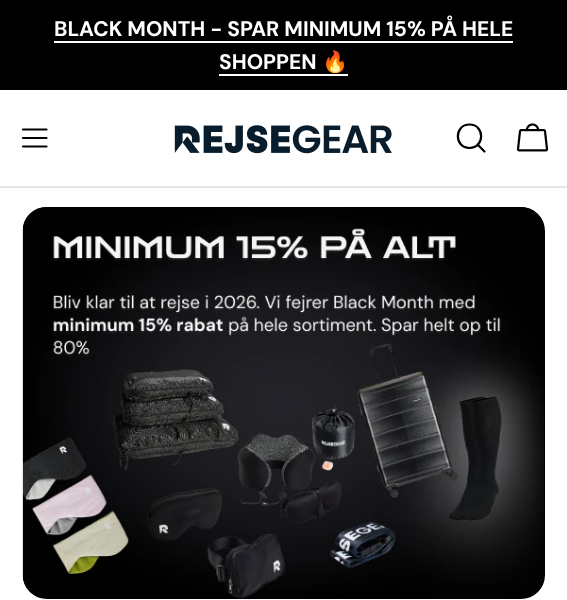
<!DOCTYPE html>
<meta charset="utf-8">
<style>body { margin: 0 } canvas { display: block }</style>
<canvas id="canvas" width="567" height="600"></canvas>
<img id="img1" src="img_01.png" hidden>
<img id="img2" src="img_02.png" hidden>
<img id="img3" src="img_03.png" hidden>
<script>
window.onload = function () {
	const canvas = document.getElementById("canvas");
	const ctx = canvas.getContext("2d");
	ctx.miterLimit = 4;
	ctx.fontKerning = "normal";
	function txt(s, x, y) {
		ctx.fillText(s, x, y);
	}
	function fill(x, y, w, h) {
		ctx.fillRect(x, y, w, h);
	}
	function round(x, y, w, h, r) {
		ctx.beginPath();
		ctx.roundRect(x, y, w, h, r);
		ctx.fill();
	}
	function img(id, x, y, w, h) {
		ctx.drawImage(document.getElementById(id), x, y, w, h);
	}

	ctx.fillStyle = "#FFFFFF";
	fill(0, 0, 567, 600);
	ctx.fillStyle = "#000000";
	fill(0, 0, 567, 90);
	ctx.fillStyle = "#FFFFFF";
	fill(54, 41, 459, 2);
	fill(219, 74, 129, 2);
	ctx.fillStyle = "#E6E6E6";
	fill(0, 186, 567, 2);
	ctx.beginPath();
	ctx.moveTo(23, 138);
	ctx.lineTo(46.5, 138);
	ctx.moveTo(23, 129.5);
	ctx.lineTo(46.5, 129.5);
	ctx.moveTo(23, 146.5);
	ctx.lineTo(46.5, 146.5);
	ctx.strokeStyle = "#000000";
	ctx.lineWidth = 2.2;
	ctx.lineCap = "round";
	ctx.lineJoin = "round";
	ctx.stroke();
	img("img1", 174, 125, 218, 29);
	ctx.beginPath();
	ctx.moveTo(469.5, 148);
	ctx.bezierCurveTo(485, 148, 485, 124.5, 469.5, 124.5);
	ctx.bezierCurveTo(454, 124.5, 454, 148, 469.5, 148);
	ctx.closePath();
	ctx.moveTo(477.5, 144.5);
	ctx.lineTo(484.5, 151.5);
	ctx.stroke();
	img("img2", 516, 123, 33, 29);
	ctx.fillStyle = "#000000";
	round(23, 207, 522, 392, 24);
	img("img3", 22, 207, 522, 391);
	ctx.font = "bold 21px DM Sans";
	ctx.fillStyle = "#FFFFFF";
	txt("BLACK MONTH - SPAR MINIMUM 15% PÅ HELE", 54, 36);
	txt("SHOPPEN", 219, 69);
	ctx.font = "bold 21px Noto Color Emoji";
	txt("🔥", 322, 69);
};
</script>
